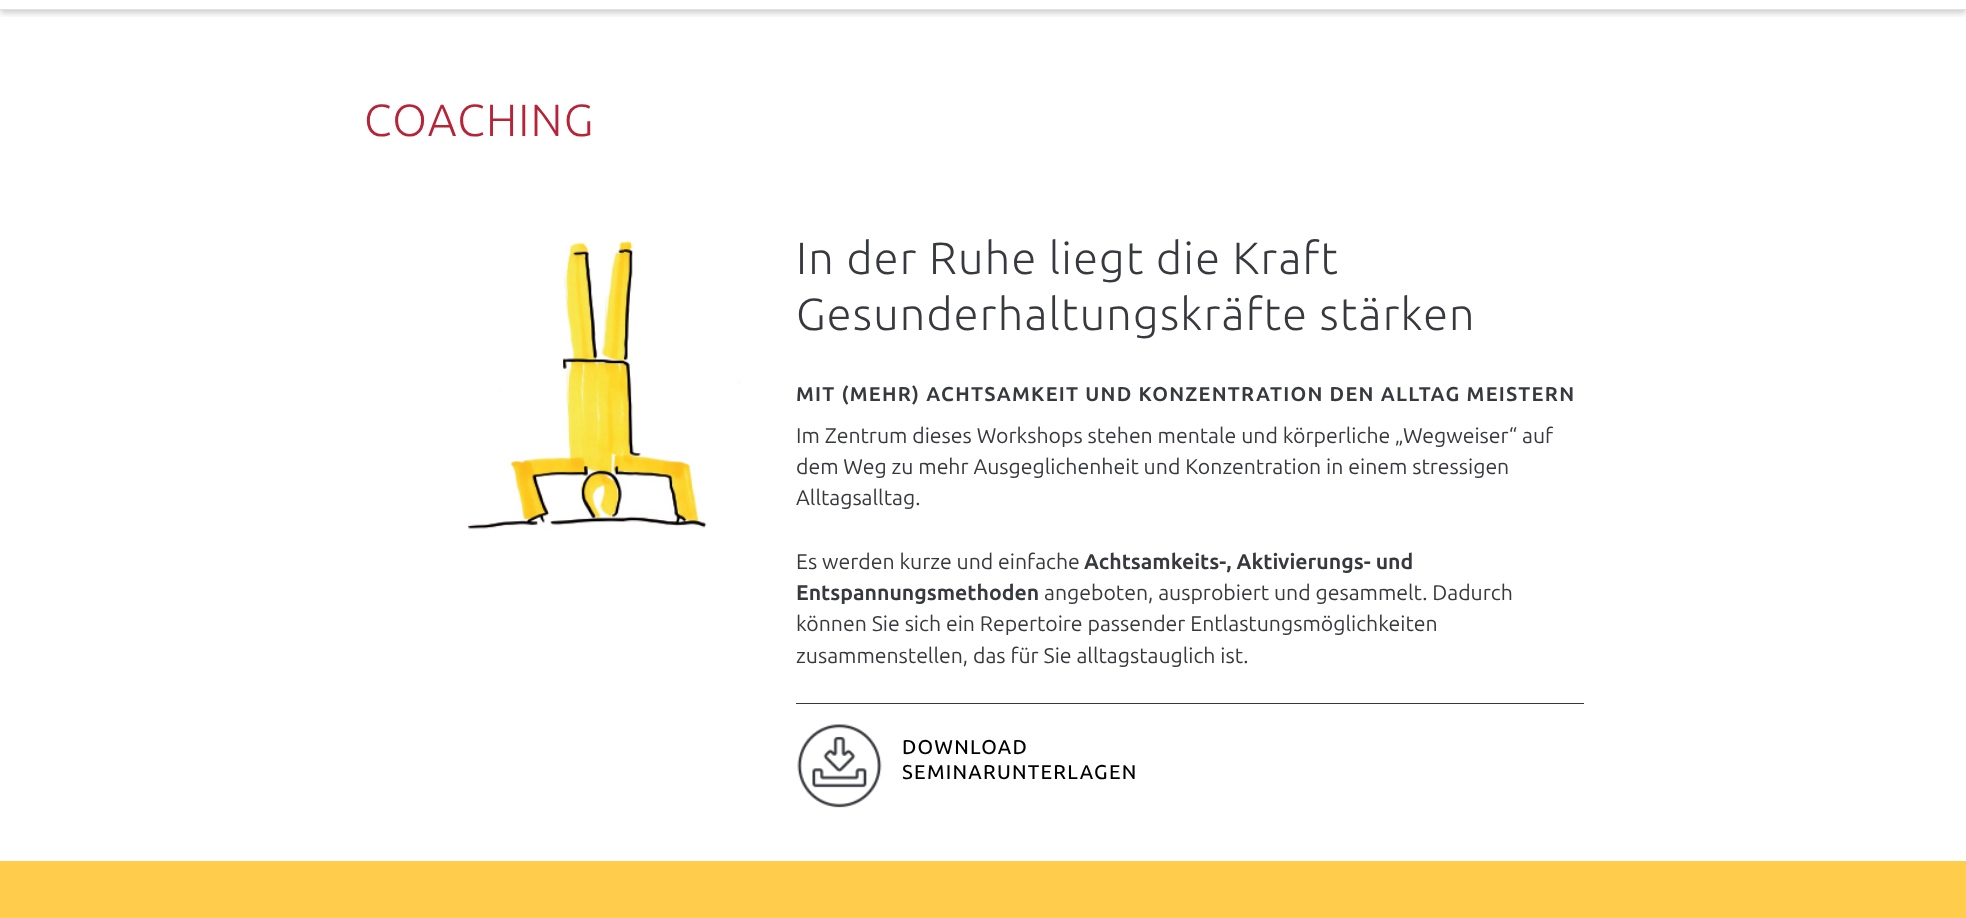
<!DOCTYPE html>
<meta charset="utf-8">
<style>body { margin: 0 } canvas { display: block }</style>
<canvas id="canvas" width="1966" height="918"></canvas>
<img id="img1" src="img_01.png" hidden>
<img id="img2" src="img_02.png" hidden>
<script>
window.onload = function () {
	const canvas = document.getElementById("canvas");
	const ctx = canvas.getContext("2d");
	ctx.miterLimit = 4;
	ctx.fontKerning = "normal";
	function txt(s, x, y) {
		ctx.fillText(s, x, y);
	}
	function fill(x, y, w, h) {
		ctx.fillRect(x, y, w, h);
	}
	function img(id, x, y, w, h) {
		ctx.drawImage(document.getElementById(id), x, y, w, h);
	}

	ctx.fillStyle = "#FFFFFF";
	fill(0, 0, 1966, 918);
	ctx.save();
	ctx.beginPath();
	ctx.rect(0, 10, 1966, 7);
	ctx.clip();
	ctx.fillStyle = "rgba(0, 0, 0, 0.2)";
	ctx.filter = "blur(3px)";
	ctx.beginPath();
	ctx.rect(0, -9, 1966, 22);
	ctx.fill();
	ctx.filter = "none";
	ctx.restore();
	ctx.fillStyle = "#E1E1E1";
	fill(0, 9, 1966, 1);
	img("img1", 468, 241, 272, 289);
	ctx.fillStyle = "#37393E";
	fill(796, 703, 788, 1);
	img("img2", 797, 724, 85, 84);
	ctx.fillStyle = "#FFCC4C";
	fill(0, 861, 1966, 57);
	ctx.letterSpacing = "1.25px";
	ctx.font = "300 45px Ubuntu";
	ctx.fillStyle = "#B52437";
	txt("COACHING", 364, 136);
	ctx.fillStyle = "#37393E";
	txt("In der Ruhe liegt die Kraft", 796, 274);
	txt("Gesunderhaltungskräfte stärken", 796, 330);
	ctx.font = "bold 20px Ubuntu";
	txt("MIT (MEHR) ACHTSAMKEIT UND KONZENTRATION DEN ALLTAG MEISTERN", 796, 401);
	ctx.letterSpacing = "0px";
	ctx.font = "21.25px Ubuntu";
	txt("Im Zentrum dieses Workshops stehen mentale und körperliche „Wegweiser“ auf", 796, 443);
	txt("dem Weg zu mehr Ausgeglichenheit und Konzentration in einem stressigen", 796, 474);
	txt("Alltagsalltag.", 796, 505);
	txt("Es werden kurze und einfache", 796, 569);
	ctx.font = "bold 21.25px Ubuntu";
	txt("Achtsamkeits-, Aktivierungs- und", 1084, 569);
	txt("Entspannungsmethoden", 796, 600);
	ctx.font = "21.25px Ubuntu";
	txt("angeboten, ausprobiert und gesammelt. Dadurch", 1044, 600);
	txt("können Sie sich ein Repertoire passender Entlastungsmöglichkeiten", 796, 631);
	txt("zusammenstellen, das für Sie alltagstauglich ist.", 796, 663);
	ctx.letterSpacing = "1.25px";
	ctx.font = "500 20px Ubuntu";
	ctx.fillStyle = "#000000";
	txt("DOWNLOAD", 902, 754);
	txt("SEMINARUNTERLAGEN", 902, 779);
};
</script>
